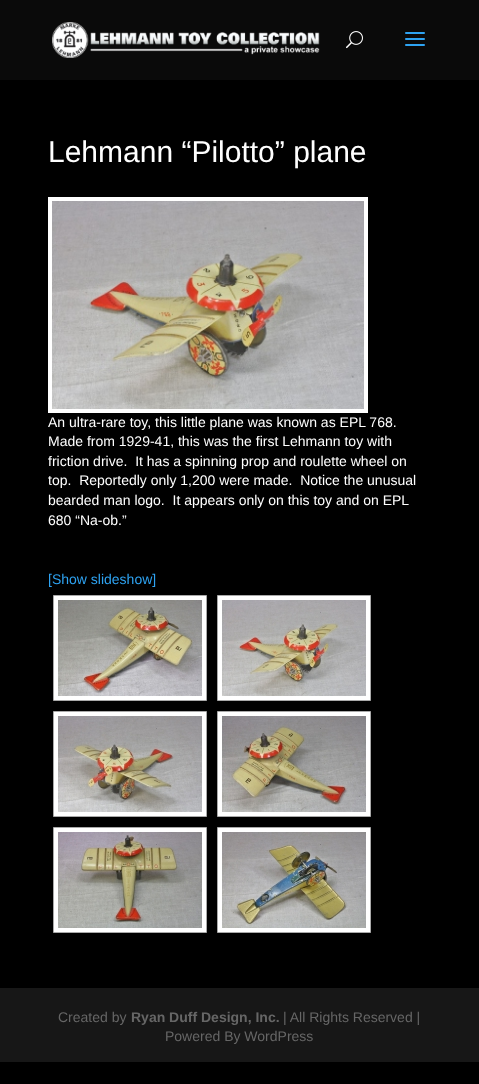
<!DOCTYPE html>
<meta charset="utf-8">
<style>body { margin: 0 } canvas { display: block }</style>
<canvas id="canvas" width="479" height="1084"></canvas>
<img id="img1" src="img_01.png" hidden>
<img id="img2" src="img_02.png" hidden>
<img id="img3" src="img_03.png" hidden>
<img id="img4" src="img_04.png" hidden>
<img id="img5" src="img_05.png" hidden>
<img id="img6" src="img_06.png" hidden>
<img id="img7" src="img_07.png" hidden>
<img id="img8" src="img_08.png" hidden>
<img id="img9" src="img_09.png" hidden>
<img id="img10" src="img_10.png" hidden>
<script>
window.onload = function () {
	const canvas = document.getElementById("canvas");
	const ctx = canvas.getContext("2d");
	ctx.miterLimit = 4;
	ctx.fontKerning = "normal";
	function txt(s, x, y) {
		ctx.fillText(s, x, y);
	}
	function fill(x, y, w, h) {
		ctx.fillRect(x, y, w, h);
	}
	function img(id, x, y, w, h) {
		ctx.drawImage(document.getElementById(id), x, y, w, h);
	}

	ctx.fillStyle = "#000000";
	fill(0, 0, 479, 1084);
	ctx.fillStyle = "#0A0A0A";
	fill(0, 0, 479, 80);
	img("img1", 52, 22, 268, 36);
	img("img2", 346, 31, 17, 18);
	img("img3", 405, 32, 20, 14);
	ctx.fillStyle = "#FFFFFF";
	fill(48, 197, 320, 216);
	img("img4", 52, 201, 312, 208);
	ctx.beginPath();
	ctx.rect(53.5, 595.5, 153, 105);
	ctx.fill();
	ctx.strokeStyle = "#A9A9A9";
	ctx.stroke();
	img("img5", 58, 600, 144, 96);
	ctx.beginPath();
	ctx.rect(217.5, 595.5, 153, 105);
	ctx.fill();
	ctx.stroke();
	img("img6", 222, 600, 144, 96);
	ctx.beginPath();
	ctx.rect(53.5, 711.5, 153, 105);
	ctx.fill();
	ctx.stroke();
	img("img7", 58, 716, 144, 96);
	ctx.beginPath();
	ctx.rect(217.5, 711.5, 153, 105);
	ctx.fill();
	ctx.stroke();
	img("img8", 222, 716, 144, 96);
	ctx.beginPath();
	ctx.rect(53.5, 827.5, 153, 105);
	ctx.fill();
	ctx.stroke();
	img("img9", 58, 832, 144, 96);
	ctx.beginPath();
	ctx.rect(217.5, 827.5, 153, 105);
	ctx.fill();
	ctx.stroke();
	img("img10", 222, 832, 144, 96);
	ctx.fillStyle = "#171717";
	fill(0, 988, 479, 74);
	ctx.font = "30px Liberation Sans";
	ctx.fillStyle = "#FFFFFF";
	txt("Lehmann “Pilotto” plane", 48, 162);
	ctx.font = "14px Liberation Sans";
	txt("An ultra-rare toy, this little plane was known as EPL 768.", 48, 427);
	txt("Made from 1929-41, this was the first Lehmann toy with", 48, 446);
	txt("friction drive.  It has a spinning prop and roulette wheel on", 48, 466);
	txt("top.  Reportedly only 1,200 were made.  Notice the unusual", 48, 485);
	txt("bearded man logo.  It appears only on this toy and on EPL", 48, 505);
	txt("680 “Na-ob.”", 48, 525);
	ctx.fillStyle = "#2EA3F2";
	txt("[Show slideshow]", 48, 584);
	ctx.fillStyle = "#666666";
	txt("Created by", 58, 1022);
	ctx.font = "bold 14px Liberation Sans";
	txt("Ryan Duff Design, Inc.", 131, 1022);
	ctx.font = "14px Liberation Sans";
	txt("| All Rights Reserved |", 283, 1022);
	txt("Powered By WordPress", 165, 1041);
};
</script>
